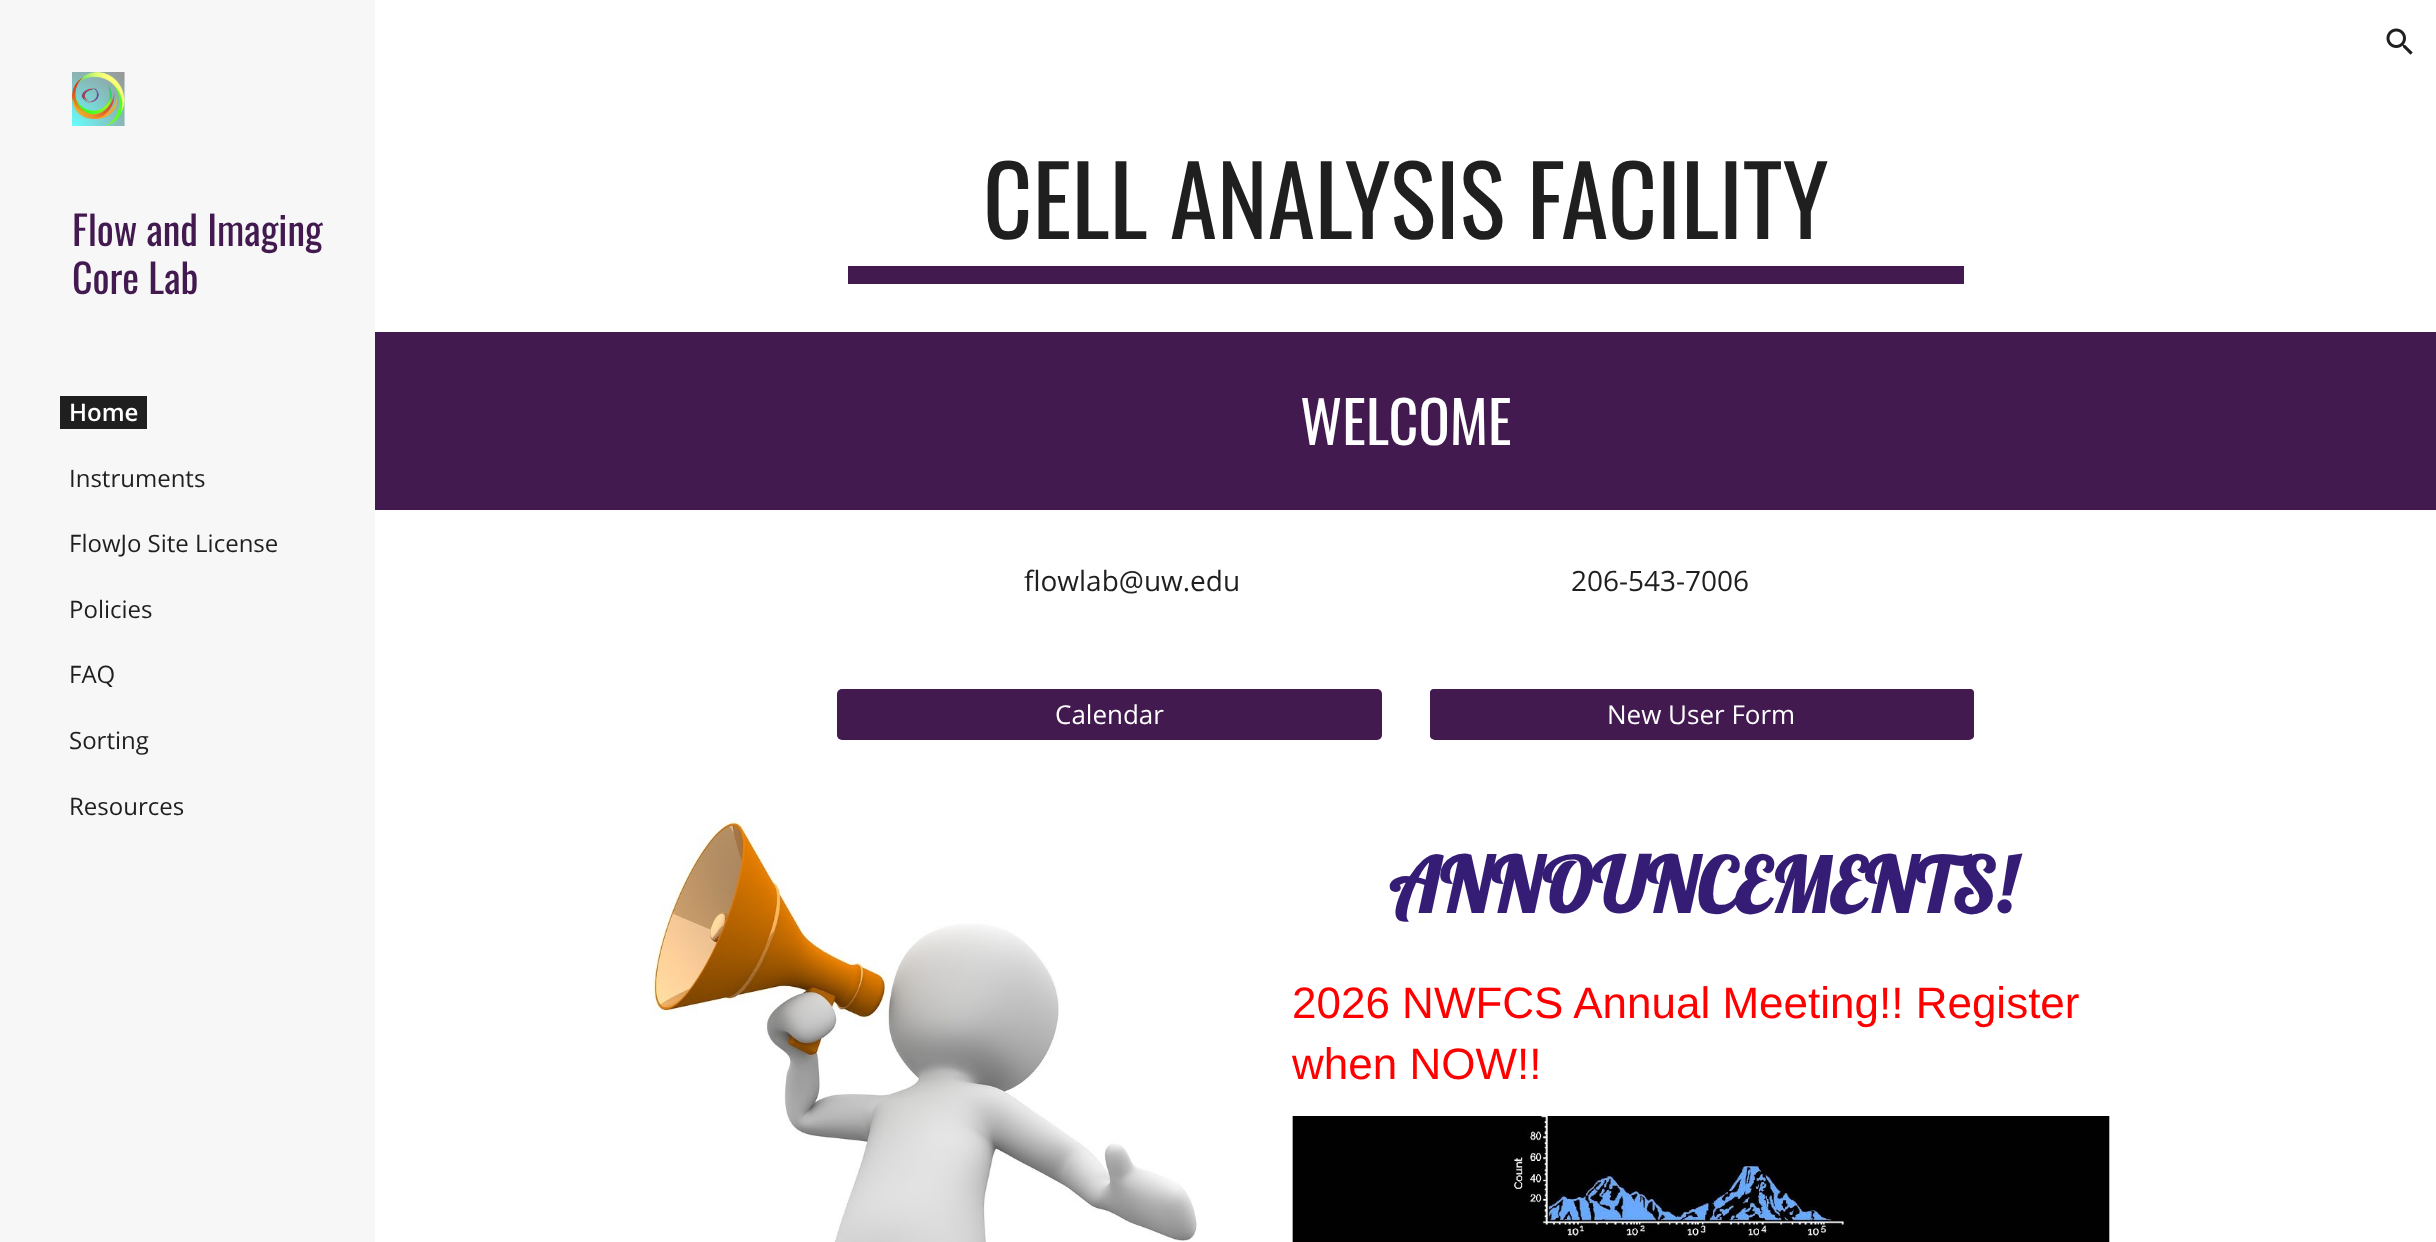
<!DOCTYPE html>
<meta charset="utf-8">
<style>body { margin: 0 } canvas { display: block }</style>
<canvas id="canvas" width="2436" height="1242"></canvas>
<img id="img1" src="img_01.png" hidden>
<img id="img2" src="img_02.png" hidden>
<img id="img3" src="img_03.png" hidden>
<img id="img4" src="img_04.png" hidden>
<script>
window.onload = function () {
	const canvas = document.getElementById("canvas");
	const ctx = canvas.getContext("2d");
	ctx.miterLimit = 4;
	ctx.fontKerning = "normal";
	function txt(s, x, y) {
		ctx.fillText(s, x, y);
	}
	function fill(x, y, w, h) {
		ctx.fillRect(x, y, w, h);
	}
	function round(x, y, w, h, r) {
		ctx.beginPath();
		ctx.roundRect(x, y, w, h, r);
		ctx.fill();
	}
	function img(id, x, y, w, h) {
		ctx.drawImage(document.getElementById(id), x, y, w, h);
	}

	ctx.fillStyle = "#FFFFFF";
	fill(0, 0, 2436, 1242);
	img("img1", 2386, 28, 27, 27);
	ctx.fillStyle = "#F7F7F7";
	fill(0, 0, 375, 1242);
	img("img2", 72, 72, 53, 54);
	ctx.fillStyle = "#1F1F1F";
	fill(60, 396, 87, 33);
	ctx.fillStyle = "#421A50";
	fill(848, 266, 1116, 18);
	fill(375, 332, 2061, 178);
	round(837, 689, 545, 51, 5);
	ctx.beginPath();
	ctx.roundRect(1429, 688, 546, 52, 5);
	ctx.fill();
	ctx.strokeStyle = "#FFFFFF";
	ctx.lineWidth = 2;
	ctx.stroke();
	round(1430, 689, 544, 51, 5);
	img("img3", 652, 813, 545, 429);
	img("img4", 1292, 1116, 818, 126);
	ctx.font = "40px Oswald";
	txt("Flow and Imaging", 72, 246);
	txt("Core Lab", 72, 294);
	ctx.font = "600 24px Open Sans";
	ctx.fillStyle = "#FFFFFF";
	txt("Home", 69, 421);
	ctx.font = "24px Open Sans";
	ctx.fillStyle = "#1F1F1F";
	txt("Instruments", 69, 487);
	txt("FlowJo Site License", 69, 552);
	txt("Policies", 69, 618);
	txt("FAQ", 69, 683);
	txt("Sorting", 69, 749);
	txt("Resources", 69, 815);
	ctx.font = "96px Oswald";
	txt("CELL ANALYSIS FACILITY", 983, 239);
	ctx.font = "58px Oswald";
	ctx.fillStyle = "#FFFFFF";
	txt("WELCOME", 1300, 445);
	ctx.font = "28px Open Sans";
	ctx.fillStyle = "#1F1F1F";
	txt("flowlab@uw.edu", 1024, 591);
	txt("206-543-7006", 1571, 591);
	ctx.font = "26px Open Sans";
	ctx.fillStyle = "#FFFFFF";
	txt("Calendar", 1055, 724);
	txt("New User Form", 1607, 724);
	ctx.font = "bold 76px Lobster";
	ctx.fillStyle = "#351C75";
	txt("ANNOUNCEMENTS!", 1389, 913);
	ctx.font = "44px Liberation Sans";
	ctx.fillStyle = "#FF0000";
	txt("2026 NWFCS Annual Meeting!! Register", 1292, 1018);
	txt("when NOW!!", 1292, 1079);
};
</script>
